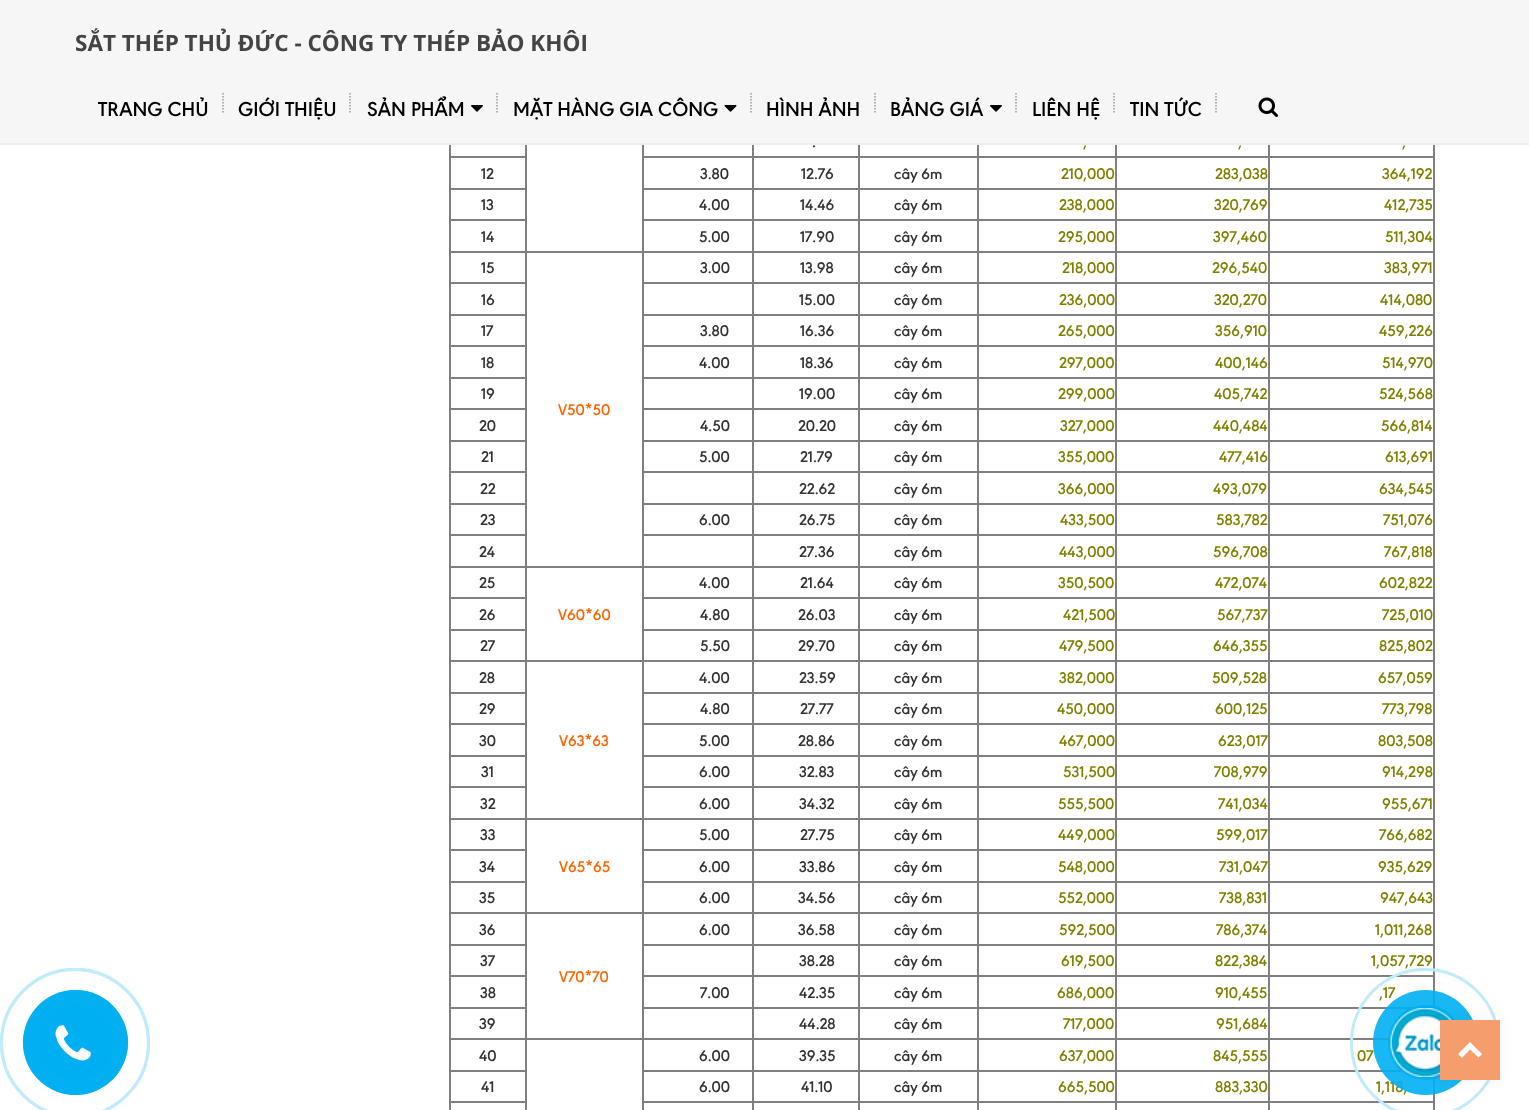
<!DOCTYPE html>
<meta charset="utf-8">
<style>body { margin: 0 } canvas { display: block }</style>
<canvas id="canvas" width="1529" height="1110"></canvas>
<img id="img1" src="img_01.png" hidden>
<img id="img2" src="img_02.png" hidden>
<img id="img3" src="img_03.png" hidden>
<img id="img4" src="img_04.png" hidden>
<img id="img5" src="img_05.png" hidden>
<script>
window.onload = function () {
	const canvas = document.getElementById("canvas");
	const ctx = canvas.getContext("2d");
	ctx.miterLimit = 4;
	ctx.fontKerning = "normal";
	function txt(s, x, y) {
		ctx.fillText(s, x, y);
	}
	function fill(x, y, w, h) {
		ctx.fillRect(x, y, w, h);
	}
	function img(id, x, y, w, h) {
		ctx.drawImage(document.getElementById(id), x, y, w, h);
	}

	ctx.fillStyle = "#FFFFFF";
	fill(0, 0, 1529, 1110);
	ctx.beginPath();
	ctx.arc(75, 1043, 73.5, 0, Math.PI * 2);
	ctx.strokeStyle = "#BFEBFC";
	ctx.lineWidth = 3;
	ctx.stroke();
	ctx.fillStyle = "#1AB7F3";
	ctx.beginPath();
	ctx.arc(75.5, 1042.5, 52.5, 0, Math.PI * 2);
	ctx.fill();
	ctx.beginPath();
	ctx.arc(75, 1043, 73.5, 0, Math.PI * 2);
	ctx.stroke();
	ctx.fillStyle = "rgba(0, 175, 242, 0.9)";
	ctx.beginPath();
	ctx.arc(75.5, 1042.5, 52.5, 0, Math.PI * 2);
	ctx.fill();
	ctx.fillStyle = "#00AFF2";
	ctx.beginPath();
	ctx.arc(75.5, 1042.5, 37.5, 0, Math.PI * 2);
	ctx.fill();
	img("img1", 55, 1025, 36, 36);
	ctx.fillStyle = "#F6F6F6";
	fill(0, 0, 1529, 143);
	ctx.fillStyle = "#EEEEEE";
	fill(0, 143, 1529, 2);
	ctx.beginPath();
	ctx.moveTo(223, 93);
	ctx.lineTo(223, 112.5);
	ctx.strokeStyle = "#999999";
	ctx.lineWidth = 1.5;
	ctx.setLineDash([1.5, 1.5]);
	ctx.stroke();
	ctx.beginPath();
	ctx.moveTo(350, 93);
	ctx.lineTo(350, 112.5);
	ctx.stroke();
	img("img2", 471, 105, 12, 7);
	ctx.beginPath();
	ctx.moveTo(497, 93);
	ctx.lineTo(497, 112.5);
	ctx.stroke();
	img("img3", 724, 105, 13, 7);
	ctx.beginPath();
	ctx.moveTo(751, 93);
	ctx.lineTo(751, 112.5);
	ctx.stroke();
	ctx.beginPath();
	ctx.moveTo(875, 93);
	ctx.lineTo(875, 112.5);
	ctx.stroke();
	img("img2", 990, 105, 12, 7);
	ctx.beginPath();
	ctx.moveTo(1016, 93);
	ctx.lineTo(1016, 112.5);
	ctx.stroke();
	ctx.beginPath();
	ctx.moveTo(1114, 93);
	ctx.lineTo(1114, 112.5);
	ctx.stroke();
	ctx.beginPath();
	ctx.moveTo(1216, 93);
	ctx.lineTo(1216, 112.5);
	ctx.stroke();
	img("img4", 1258, 97, 20, 20);
	ctx.fillStyle = "#808080";
	fill(1433, 145, 2, 965);
	fill(449, 145, 2, 965);
	fill(449, 156, 78, 2);
	fill(449, 188, 78, 2);
	fill(449, 219, 78, 2);
	fill(1268, 251, 166, 2);
	fill(1268, 282, 166, 2);
	fill(1268, 314, 166, 2);
	fill(1268, 345, 166, 2);
	fill(1268, 377, 166, 2);
	fill(1268, 408, 166, 2);
	fill(1268, 440, 166, 2);
	fill(1268, 471, 166, 2);
	fill(1268, 503, 166, 2);
	fill(1268, 534, 166, 2);
	fill(1268, 566, 166, 2);
	fill(1268, 597, 166, 2);
	fill(1268, 629, 166, 2);
	fill(1268, 660, 166, 2);
	fill(1268, 692, 166, 2);
	fill(1268, 723, 166, 2);
	fill(1268, 755, 166, 2);
	fill(1268, 786, 166, 2);
	fill(1268, 818, 166, 2);
	fill(1268, 849, 166, 2);
	fill(1268, 881, 166, 2);
	fill(1268, 912, 166, 2);
	fill(1268, 944, 166, 2);
	fill(1268, 975, 166, 2);
	fill(1268, 1007, 146, 2);
	fill(1268, 1038, 121, 2);
	fill(1268, 1070, 135, 2);
	fill(1268, 1101, 166, 2);
	fill(1268, 1101, 2, 9);
	fill(1115, 1101, 154, 2);
	fill(1268, 1070, 2, 33);
	fill(1115, 1070, 154, 2);
	fill(1268, 1038, 2, 33);
	fill(1115, 1038, 154, 2);
	fill(1268, 1007, 2, 33);
	fill(1115, 1007, 154, 2);
	fill(1268, 975, 2, 33);
	fill(1115, 975, 154, 2);
	fill(1268, 944, 2, 33);
	fill(1115, 944, 154, 2);
	fill(1268, 912, 2, 33);
	fill(1115, 912, 154, 2);
	fill(1268, 881, 2, 33);
	fill(1115, 881, 154, 2);
	fill(1268, 849, 2, 33);
	fill(1115, 849, 154, 2);
	fill(1268, 818, 2, 33);
	fill(1115, 818, 154, 2);
	fill(1268, 786, 2, 33);
	fill(1115, 786, 154, 2);
	fill(1268, 755, 2, 33);
	fill(1115, 755, 154, 2);
	fill(1268, 723, 2, 33);
	fill(1115, 723, 154, 2);
	fill(1268, 692, 2, 33);
	fill(1115, 692, 154, 2);
	fill(1268, 660, 2, 33);
	fill(1115, 660, 154, 2);
	fill(1268, 629, 2, 33);
	fill(1115, 629, 154, 2);
	fill(1268, 597, 2, 33);
	fill(1115, 597, 154, 2);
	fill(1268, 566, 2, 33);
	fill(1115, 566, 154, 2);
	fill(1268, 534, 2, 33);
	fill(1115, 534, 154, 2);
	fill(1268, 503, 2, 33);
	fill(1115, 503, 154, 2);
	fill(1268, 471, 2, 33);
	fill(1115, 471, 154, 2);
	fill(1268, 440, 2, 33);
	fill(1115, 440, 154, 2);
	fill(1268, 408, 2, 33);
	fill(1115, 408, 154, 2);
	fill(1268, 377, 2, 33);
	fill(1115, 377, 154, 2);
	fill(1268, 345, 2, 33);
	fill(1115, 345, 154, 2);
	fill(1268, 314, 2, 33);
	fill(1115, 314, 154, 2);
	fill(1268, 282, 2, 33);
	fill(1115, 282, 154, 2);
	fill(1268, 251, 2, 33);
	fill(1115, 251, 154, 2);
	fill(1115, 1101, 2, 9);
	fill(977, 1101, 139, 2);
	fill(1115, 1070, 2, 33);
	fill(977, 1070, 139, 2);
	fill(1115, 1038, 2, 33);
	fill(977, 1038, 139, 2);
	fill(1115, 1007, 2, 33);
	fill(977, 1007, 139, 2);
	fill(1115, 975, 2, 33);
	fill(977, 975, 139, 2);
	fill(1115, 944, 2, 33);
	fill(977, 944, 139, 2);
	fill(1115, 912, 2, 33);
	fill(977, 912, 139, 2);
	fill(1115, 881, 2, 33);
	fill(977, 881, 139, 2);
	fill(1115, 849, 2, 33);
	fill(977, 849, 139, 2);
	fill(1115, 818, 2, 33);
	fill(977, 818, 139, 2);
	fill(1115, 786, 2, 33);
	fill(977, 786, 139, 2);
	fill(1115, 755, 2, 33);
	fill(977, 755, 139, 2);
	fill(1115, 723, 2, 33);
	fill(977, 723, 139, 2);
	fill(1115, 692, 2, 33);
	fill(977, 692, 139, 2);
	fill(1115, 660, 2, 33);
	fill(977, 660, 139, 2);
	fill(1115, 629, 2, 33);
	fill(977, 629, 139, 2);
	fill(1115, 597, 2, 33);
	fill(977, 597, 139, 2);
	fill(1115, 566, 2, 33);
	fill(977, 566, 139, 2);
	fill(1115, 534, 2, 33);
	fill(977, 534, 139, 2);
	fill(1115, 503, 2, 33);
	fill(977, 503, 139, 2);
	fill(1115, 471, 2, 33);
	fill(977, 471, 139, 2);
	fill(1115, 440, 2, 33);
	fill(977, 440, 139, 2);
	fill(1115, 408, 2, 33);
	fill(977, 408, 139, 2);
	fill(1115, 377, 2, 33);
	fill(977, 377, 139, 2);
	fill(1115, 345, 2, 33);
	fill(977, 345, 139, 2);
	fill(1115, 314, 2, 33);
	fill(977, 314, 139, 2);
	fill(1115, 282, 2, 33);
	fill(977, 282, 139, 2);
	fill(1115, 251, 2, 33);
	fill(977, 251, 139, 2);
	fill(977, 1101, 2, 9);
	fill(858, 1101, 120, 2);
	fill(977, 1070, 2, 33);
	fill(858, 1070, 120, 2);
	fill(977, 1038, 2, 33);
	fill(858, 1038, 120, 2);
	fill(977, 1007, 2, 33);
	fill(858, 1007, 120, 2);
	fill(977, 975, 2, 33);
	fill(858, 975, 120, 2);
	fill(977, 944, 2, 33);
	fill(858, 944, 120, 2);
	fill(977, 912, 2, 33);
	fill(858, 912, 120, 2);
	fill(977, 881, 2, 33);
	fill(858, 881, 120, 2);
	fill(977, 849, 2, 33);
	fill(858, 849, 120, 2);
	fill(977, 818, 2, 33);
	fill(858, 818, 120, 2);
	fill(977, 786, 2, 33);
	fill(858, 786, 120, 2);
	fill(977, 755, 2, 33);
	fill(858, 755, 120, 2);
	fill(977, 723, 2, 33);
	fill(858, 723, 120, 2);
	fill(977, 692, 2, 33);
	fill(858, 692, 120, 2);
	fill(977, 660, 2, 33);
	fill(858, 660, 120, 2);
	fill(977, 629, 2, 33);
	fill(858, 629, 120, 2);
	fill(977, 597, 2, 33);
	fill(858, 597, 120, 2);
	fill(977, 566, 2, 33);
	fill(858, 566, 120, 2);
	fill(977, 534, 2, 33);
	fill(858, 534, 120, 2);
	fill(977, 503, 2, 33);
	fill(858, 503, 120, 2);
	fill(977, 471, 2, 33);
	fill(858, 471, 120, 2);
	fill(977, 440, 2, 33);
	fill(858, 440, 120, 2);
	fill(977, 408, 2, 33);
	fill(858, 408, 120, 2);
	fill(977, 377, 2, 33);
	fill(858, 377, 120, 2);
	fill(977, 345, 2, 33);
	fill(858, 345, 120, 2);
	fill(977, 314, 2, 33);
	fill(858, 314, 120, 2);
	fill(977, 282, 2, 33);
	fill(858, 282, 120, 2);
	fill(977, 251, 2, 33);
	fill(858, 251, 120, 2);
	fill(858, 1101, 2, 9);
	fill(752, 1101, 108, 2);
	fill(858, 1070, 2, 33);
	fill(752, 1070, 108, 2);
	fill(858, 1038, 2, 33);
	fill(752, 1038, 108, 2);
	fill(858, 1007, 2, 33);
	fill(752, 1007, 108, 2);
	fill(858, 975, 2, 33);
	fill(752, 975, 108, 2);
	fill(858, 944, 2, 33);
	fill(752, 944, 108, 2);
	fill(858, 912, 2, 33);
	fill(752, 912, 108, 2);
	fill(858, 881, 2, 33);
	fill(752, 881, 108, 2);
	fill(858, 849, 2, 33);
	fill(752, 849, 108, 2);
	fill(858, 818, 2, 33);
	fill(752, 818, 108, 2);
	fill(858, 786, 2, 33);
	fill(752, 786, 108, 2);
	fill(858, 755, 2, 33);
	fill(752, 755, 108, 2);
	fill(858, 723, 2, 33);
	fill(752, 723, 108, 2);
	fill(858, 692, 2, 33);
	fill(752, 692, 108, 2);
	fill(858, 660, 2, 33);
	fill(752, 660, 108, 2);
	fill(858, 629, 2, 33);
	fill(752, 629, 108, 2);
	fill(858, 597, 2, 33);
	fill(752, 597, 108, 2);
	fill(858, 566, 2, 33);
	fill(752, 566, 108, 2);
	fill(858, 534, 2, 33);
	fill(752, 534, 108, 2);
	fill(858, 503, 2, 33);
	fill(752, 503, 108, 2);
	fill(858, 471, 2, 33);
	fill(752, 471, 108, 2);
	fill(858, 440, 2, 33);
	fill(752, 440, 108, 2);
	fill(858, 408, 2, 33);
	fill(752, 408, 108, 2);
	fill(858, 377, 2, 33);
	fill(752, 377, 108, 2);
	fill(858, 345, 2, 33);
	fill(752, 345, 108, 2);
	fill(858, 314, 2, 33);
	fill(752, 314, 108, 2);
	fill(858, 282, 2, 33);
	fill(752, 282, 108, 2);
	fill(858, 251, 2, 33);
	fill(752, 251, 108, 2);
	fill(752, 1101, 2, 9);
	fill(642, 1101, 111, 2);
	fill(752, 1070, 2, 33);
	fill(642, 1070, 111, 2);
	fill(752, 1038, 2, 33);
	fill(642, 1038, 111, 2);
	fill(752, 1007, 2, 33);
	fill(642, 1007, 111, 2);
	fill(752, 975, 2, 33);
	fill(642, 975, 111, 2);
	fill(752, 944, 2, 33);
	fill(642, 944, 111, 2);
	fill(752, 912, 2, 33);
	fill(642, 912, 111, 2);
	fill(752, 881, 2, 33);
	fill(642, 881, 111, 2);
	fill(752, 849, 2, 33);
	fill(642, 849, 111, 2);
	fill(752, 818, 2, 33);
	fill(642, 818, 111, 2);
	fill(752, 786, 2, 33);
	fill(642, 786, 111, 2);
	fill(752, 755, 2, 33);
	fill(642, 755, 111, 2);
	fill(752, 723, 2, 33);
	fill(642, 723, 111, 2);
	fill(752, 692, 2, 33);
	fill(642, 692, 111, 2);
	fill(752, 660, 2, 33);
	fill(642, 660, 111, 2);
	fill(752, 629, 2, 33);
	fill(642, 629, 111, 2);
	fill(752, 597, 2, 33);
	fill(642, 597, 111, 2);
	fill(752, 566, 2, 33);
	fill(642, 566, 111, 2);
	fill(752, 534, 2, 33);
	fill(642, 534, 111, 2);
	fill(752, 503, 2, 33);
	fill(642, 503, 111, 2);
	fill(752, 471, 2, 33);
	fill(642, 471, 111, 2);
	fill(752, 440, 2, 33);
	fill(642, 440, 111, 2);
	fill(752, 408, 2, 33);
	fill(642, 408, 111, 2);
	fill(752, 377, 2, 33);
	fill(642, 377, 111, 2);
	fill(752, 345, 2, 33);
	fill(642, 345, 111, 2);
	fill(752, 314, 2, 33);
	fill(642, 314, 111, 2);
	fill(752, 282, 2, 33);
	fill(642, 282, 111, 2);
	fill(752, 251, 2, 33);
	fill(642, 251, 111, 2);
	fill(642, 1101, 2, 9);
	fill(642, 1070, 2, 33);
	fill(642, 1038, 2, 33);
	fill(525, 1038, 119, 2);
	fill(642, 1007, 2, 33);
	fill(642, 975, 2, 33);
	fill(642, 944, 2, 33);
	fill(642, 912, 2, 33);
	fill(525, 912, 119, 2);
	fill(642, 881, 2, 33);
	fill(642, 849, 2, 33);
	fill(642, 818, 2, 33);
	fill(525, 818, 119, 2);
	fill(642, 786, 2, 33);
	fill(642, 755, 2, 33);
	fill(642, 723, 2, 33);
	fill(642, 692, 2, 33);
	fill(642, 660, 2, 33);
	fill(525, 660, 119, 2);
	fill(642, 629, 2, 33);
	fill(642, 597, 2, 33);
	fill(642, 566, 2, 33);
	fill(525, 566, 119, 2);
	fill(642, 534, 2, 33);
	fill(642, 503, 2, 33);
	fill(642, 471, 2, 33);
	fill(642, 440, 2, 33);
	fill(642, 408, 2, 33);
	fill(642, 377, 2, 33);
	fill(642, 345, 2, 33);
	fill(642, 314, 2, 33);
	fill(642, 282, 2, 33);
	fill(642, 251, 2, 33);
	fill(525, 251, 119, 2);
	fill(449, 282, 78, 2);
	fill(449, 314, 78, 2);
	fill(449, 345, 78, 2);
	fill(449, 377, 78, 2);
	fill(449, 408, 78, 2);
	fill(449, 440, 78, 2);
	fill(449, 471, 78, 2);
	fill(449, 503, 78, 2);
	fill(449, 534, 78, 2);
	fill(449, 597, 78, 2);
	fill(449, 629, 78, 2);
	fill(449, 692, 78, 2);
	fill(449, 723, 78, 2);
	fill(449, 755, 78, 2);
	fill(449, 786, 78, 2);
	fill(449, 849, 78, 2);
	fill(449, 881, 78, 2);
	fill(449, 944, 78, 2);
	fill(449, 975, 78, 2);
	fill(449, 1007, 78, 2);
	fill(449, 1070, 78, 2);
	fill(449, 1101, 78, 2);
	fill(525, 1038, 2, 72);
	fill(449, 1038, 78, 2);
	fill(525, 912, 2, 128);
	fill(449, 912, 78, 2);
	fill(525, 818, 2, 96);
	fill(449, 818, 78, 2);
	fill(525, 660, 2, 159);
	fill(449, 660, 78, 2);
	fill(525, 566, 2, 96);
	fill(449, 566, 78, 2);
	fill(525, 251, 2, 316);
	fill(449, 251, 78, 2);
	fill(525, 145, 2, 107);
	fill(1268, 156, 166, 2);
	fill(1268, 188, 166, 2);
	fill(1268, 219, 166, 2);
	fill(1268, 219, 2, 33);
	fill(1115, 219, 154, 2);
	fill(1268, 188, 2, 33);
	fill(1115, 188, 154, 2);
	fill(1268, 156, 2, 33);
	fill(1115, 156, 154, 2);
	fill(1115, 219, 2, 33);
	fill(977, 219, 139, 2);
	fill(1115, 188, 2, 33);
	fill(977, 188, 139, 2);
	fill(1115, 156, 2, 33);
	fill(977, 156, 139, 2);
	fill(977, 219, 2, 33);
	fill(858, 219, 120, 2);
	fill(977, 188, 2, 33);
	fill(858, 188, 120, 2);
	fill(977, 156, 2, 33);
	fill(858, 156, 120, 2);
	fill(858, 219, 2, 33);
	fill(752, 219, 108, 2);
	fill(858, 188, 2, 33);
	fill(752, 188, 108, 2);
	fill(858, 156, 2, 33);
	fill(752, 156, 108, 2);
	fill(752, 219, 2, 33);
	fill(642, 219, 111, 2);
	fill(752, 188, 2, 33);
	fill(642, 188, 111, 2);
	fill(752, 156, 2, 33);
	fill(642, 156, 111, 2);
	fill(752, 145, 2, 13);
	fill(858, 145, 2, 13);
	fill(977, 145, 2, 13);
	fill(1115, 145, 2, 13);
	fill(1268, 145, 2, 13);
	fill(642, 219, 2, 33);
	fill(642, 188, 2, 33);
	fill(642, 145, 2, 44);
	ctx.font = "bold 22.5px Open Sans";
	ctx.fillStyle = "#444444";
	txt("SẮT THÉP THỦ ĐỨC - CÔNG TY THÉP BẢO KHÔI", 75, 51);
	ctx.font = "600 21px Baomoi";
	ctx.fillStyle = "#000000";
	txt("TRANG CHỦ", 98, 116);
	txt("GIỚI THIỆU", 238, 116);
	txt("SẢN PHẨM", 367, 116);
	txt("MẶT HÀNG GIA CÔNG", 513, 116);
	txt("HÌNH ẢNH", 766, 116);
	txt("BẢNG GIÁ", 890, 116);
	txt("LIÊN HỆ", 1032, 116);
	txt("TIN TỨC", 1130, 116);
	ctx.font = "600 16px Baomoi";
	ctx.fillStyle = "#333333";
	txt(".", 812, 147);
	ctx.fillStyle = "#808000";
	txt(",", 1083, 147);
	txt(",", 1238, 147);
	txt(",", 1402, 147);
	ctx.fillStyle = "#333333";
	txt("12", 481, 179);
	txt("3.80", 700, 179);
	txt("12.76", 801, 179);
	txt("cây 6m", 894, 179);
	ctx.fillStyle = "#808000";
	txt("210,000", 1061, 179);
	txt("283,038", 1215, 179);
	txt("364,192", 1382, 179);
	ctx.fillStyle = "#333333";
	txt("13", 481, 210);
	txt("4.00", 699, 210);
	txt("14.46", 800, 210);
	txt("cây 6m", 894, 210);
	ctx.fillStyle = "#808000";
	txt("238,000", 1059, 210);
	txt("320,769", 1214, 210);
	txt("412,735", 1384, 210);
	ctx.fillStyle = "#333333";
	txt("14", 481, 242);
	txt("5.00", 699, 242);
	txt("17.90", 800, 242);
	txt("cây 6m", 894, 242);
	ctx.fillStyle = "#808000";
	txt("295,000", 1058, 242);
	txt("397,460", 1213, 242);
	txt("511,304", 1385, 242);
	ctx.fillStyle = "#333333";
	txt("15", 481, 273);
	txt("3.00", 700, 273);
	txt("13.98", 800, 273);
	txt("cây 6m", 894, 273);
	ctx.fillStyle = "#808000";
	txt("218,000", 1062, 273);
	txt("296,540", 1212, 273);
	txt("383,971", 1384, 273);
	ctx.fillStyle = "#FF6600";
	txt("V50*50", 558, 415);
	ctx.fillStyle = "#333333";
	txt("16", 481, 305);
	txt("15.00", 799, 305);
	txt("cây 6m", 894, 305);
	ctx.fillStyle = "#808000";
	txt("236,000", 1059, 305);
	txt("320,270", 1214, 305);
	txt("414,080", 1380, 305);
	ctx.fillStyle = "#333333";
	txt("17", 481, 336);
	txt("3.80", 700, 336);
	txt("16.36", 800, 336);
	txt("cây 6m", 894, 336);
	ctx.fillStyle = "#808000";
	txt("265,000", 1058, 336);
	txt("356,910", 1215, 336);
	txt("459,226", 1379, 336);
	ctx.fillStyle = "#333333";
	txt("18", 481, 368);
	txt("4.00", 699, 368);
	txt("18.36", 800, 368);
	txt("cây 6m", 894, 368);
	ctx.fillStyle = "#808000";
	txt("297,000", 1059, 368);
	txt("400,146", 1215, 368);
	txt("514,970", 1382, 368);
	ctx.fillStyle = "#333333";
	txt("19", 481, 399);
	txt("19.00", 799, 399);
	txt("cây 6m", 894, 399);
	ctx.fillStyle = "#808000";
	txt("299,000", 1058, 399);
	txt("405,742", 1214, 399);
	txt("524,568", 1379, 399);
	ctx.fillStyle = "#333333";
	txt("20", 479, 431);
	txt("4.50", 700, 431);
	txt("20.20", 798, 431);
	txt("cây 6m", 894, 431);
	ctx.fillStyle = "#808000";
	txt("327,000", 1060, 431);
	txt("440,484", 1213, 431);
	txt("566,814", 1381, 431);
	ctx.fillStyle = "#333333";
	txt("21", 481, 462);
	txt("5.00", 699, 462);
	txt("21.79", 800, 462);
	txt("cây 6m", 894, 462);
	ctx.fillStyle = "#808000";
	txt("355,000", 1058, 462);
	txt("477,416", 1219, 462);
	txt("613,691", 1385, 462);
	ctx.fillStyle = "#333333";
	txt("22", 480, 494);
	txt("22.62", 799, 494);
	txt("cây 6m", 894, 494);
	ctx.fillStyle = "#808000";
	txt("366,000", 1058, 494);
	txt("493,079", 1213, 494);
	txt("634,545", 1379, 494);
	ctx.fillStyle = "#333333";
	txt("23", 480, 525);
	txt("6.00", 699, 525);
	txt("26.75", 799, 525);
	txt("cây 6m", 894, 525);
	ctx.fillStyle = "#808000";
	txt("433,500", 1060, 525);
	txt("583,782", 1216, 525);
	txt("751,076", 1383, 525);
	ctx.fillStyle = "#333333";
	txt("24", 479, 557);
	txt("27.36", 799, 557);
	txt("cây 6m", 894, 557);
	ctx.fillStyle = "#808000";
	txt("443,000", 1059, 557);
	txt("596,708", 1213, 557);
	txt("767,818", 1384, 557);
	ctx.fillStyle = "#333333";
	txt("25", 479, 588);
	txt("4.00", 699, 588);
	txt("21.64", 800, 588);
	txt("cây 6m", 894, 588);
	ctx.fillStyle = "#808000";
	txt("350,500", 1058, 588);
	txt("472,074", 1215, 588);
	txt("602,822", 1379, 588);
	ctx.fillStyle = "#FF6600";
	txt("V60*60", 558, 620);
	ctx.fillStyle = "#333333";
	txt("26", 479, 620);
	txt("4.80", 700, 620);
	txt("26.03", 798, 620);
	txt("cây 6m", 894, 620);
	ctx.fillStyle = "#808000";
	txt("421,500", 1063, 620);
	txt("567,737", 1217, 620);
	txt("725,010", 1382, 620);
	ctx.fillStyle = "#333333";
	txt("27", 480, 651);
	txt("5.50", 700, 651);
	txt("29.70", 798, 651);
	txt("cây 6m", 894, 651);
	ctx.fillStyle = "#808000";
	txt("479,500", 1059, 651);
	txt("646,355", 1213, 651);
	txt("825,802", 1379, 651);
	ctx.fillStyle = "#333333";
	txt("28", 479, 683);
	txt("4.00", 699, 683);
	txt("23.59", 799, 683);
	txt("cây 6m", 894, 683);
	ctx.fillStyle = "#808000";
	txt("382,000", 1059, 683);
	txt("509,528", 1212, 683);
	txt("657,059", 1378, 683);
	ctx.fillStyle = "#FF6600";
	txt("V63*63", 559, 746);
	ctx.fillStyle = "#333333";
	txt("29", 479, 714);
	txt("4.80", 700, 714);
	txt("27.77", 800, 714);
	txt("cây 6m", 894, 714);
	ctx.fillStyle = "#808000";
	txt("450,000", 1057, 714);
	txt("600,125", 1215, 714);
	txt("773,798", 1382, 714);
	ctx.fillStyle = "#333333";
	txt("30", 479, 746);
	txt("5.00", 699, 746);
	txt("28.86", 798, 746);
	txt("cây 6m", 894, 746);
	ctx.fillStyle = "#808000";
	txt("467,000", 1059, 746);
	txt("623,017", 1218, 746);
	txt("803,508", 1378, 746);
	ctx.fillStyle = "#333333";
	txt("31", 481, 777);
	txt("6.00", 699, 777);
	txt("32.83", 799, 777);
	txt("cây 6m", 894, 777);
	ctx.fillStyle = "#808000";
	txt("531,500", 1063, 777);
	txt("708,979", 1214, 777);
	txt("914,298", 1382, 777);
	ctx.fillStyle = "#333333";
	txt("32", 480, 809);
	txt("6.00", 699, 809);
	txt("34.32", 799, 809);
	txt("cây 6m", 894, 809);
	ctx.fillStyle = "#808000";
	txt("555,500", 1058, 809);
	txt("741,034", 1218, 809);
	txt("955,671", 1382, 809);
	ctx.fillStyle = "#333333";
	txt("33", 480, 840);
	txt("5.00", 699, 840);
	txt("27.75", 800, 840);
	txt("cây 6m", 894, 840);
	ctx.fillStyle = "#808000";
	txt("449,000", 1058, 840);
	txt("599,017", 1216, 840);
	txt("766,682", 1379, 840);
	ctx.fillStyle = "#FF6600";
	txt("V65*65", 559, 872);
	ctx.fillStyle = "#333333";
	txt("34", 479, 872);
	txt("6.00", 699, 872);
	txt("33.86", 799, 872);
	txt("cây 6m", 894, 872);
	ctx.fillStyle = "#808000";
	txt("548,000", 1058, 872);
	txt("731,047", 1219, 872);
	txt("935,629", 1378, 872);
	ctx.fillStyle = "#333333";
	txt("35", 479, 903);
	txt("6.00", 699, 903);
	txt("34.56", 798, 903);
	txt("cây 6m", 894, 903);
	ctx.fillStyle = "#808000";
	txt("552,000", 1058, 903);
	txt("738,831", 1219, 903);
	txt("947,643", 1380, 903);
	ctx.fillStyle = "#333333";
	txt("36", 479, 935);
	txt("6.00", 699, 935);
	txt("36.58", 798, 935);
	txt("cây 6m", 894, 935);
	ctx.fillStyle = "#808000";
	txt("592,500", 1059, 935);
	txt("786,374", 1216, 935);
	txt("1,011,268", 1375, 935);
	ctx.fillStyle = "#FF6600";
	txt("V70*70", 559, 982);
	ctx.fillStyle = "#333333";
	txt("37", 480, 966);
	txt("38.28", 799, 966);
	txt("cây 6m", 894, 966);
	ctx.fillStyle = "#808000";
	txt("619,500", 1061, 966);
	txt("822,384", 1215, 966);
	txt("1,057,729", 1371, 966);
	ctx.fillStyle = "#333333";
	txt("38", 480, 998);
	txt("7.00", 700, 998);
	txt("42.35", 799, 998);
	txt("cây 6m", 894, 998);
	ctx.fillStyle = "#808000";
	txt("686,000", 1057, 998);
	txt("910,455", 1215, 998);
	txt(",17", 1379, 998);
	ctx.fillStyle = "#333333";
	txt("39", 479, 1029);
	txt("44.28", 799, 1029);
	txt("cây 6m", 894, 1029);
	ctx.fillStyle = "#808000";
	txt("717,000", 1063, 1029);
	txt("951,684", 1216, 1029);
	ctx.fillStyle = "#333333";
	txt("40", 479, 1061);
	txt("6.00", 699, 1061);
	txt("39.35", 799, 1061);
	txt("cây 6m", 894, 1061);
	ctx.fillStyle = "#808000";
	txt("637,000", 1059, 1061);
	txt("845,555", 1213, 1061);
	txt("07", 1357, 1061);
	ctx.fillStyle = "#333333";
	txt("41", 481, 1092);
	txt("6.00", 699, 1092);
	txt("41.10", 801, 1092);
	txt("cây 6m", 894, 1092);
	ctx.fillStyle = "#808000";
	txt("665,500", 1058, 1092);
	txt("883,330", 1215, 1092);
	txt("1,118,", 1376, 1092);
	ctx.beginPath();
	ctx.arc(1425, 1043, 73.5, 0, Math.PI * 2);
	ctx.strokeStyle = "#BFEBFC";
	ctx.lineWidth = 3;
	ctx.setLineDash([]);
	ctx.stroke();
	ctx.fillStyle = "rgba(0, 175, 242, 0.9)";
	ctx.beginPath();
	ctx.arc(1425.5, 1042.5, 52.5, 0, Math.PI * 2);
	ctx.fill();
	ctx.fillStyle = "#00AFF2";
	ctx.beginPath();
	ctx.arc(1425.5, 1042.5, 37.5, 0, Math.PI * 2);
	ctx.fill();
	img("img5", 1390, 1008, 62, 69);
	ctx.fillStyle = "rgba(0, 0, 0, 0.05)";
	ctx.filter = "blur(7.5px)";
	ctx.beginPath();
	ctx.rect(1440, 1020, 60, 60);
	ctx.fill();
	ctx.filter = "none";
	ctx.fillStyle = "#F69D6E";
	fill(1440, 1020, 60, 60);
	ctx.fillStyle = "#FFFFFF";
	ctx.beginPath();
	ctx.moveTo(1470, 1042);
	ctx.lineTo(1482, 1054);
	ctx.lineTo(1478.5, 1057.5);
	ctx.lineTo(1470, 1049.5);
	ctx.lineTo(1462, 1058);
	ctx.lineTo(1458, 1054);
	ctx.closePath();
	ctx.fill();
};
</script>
